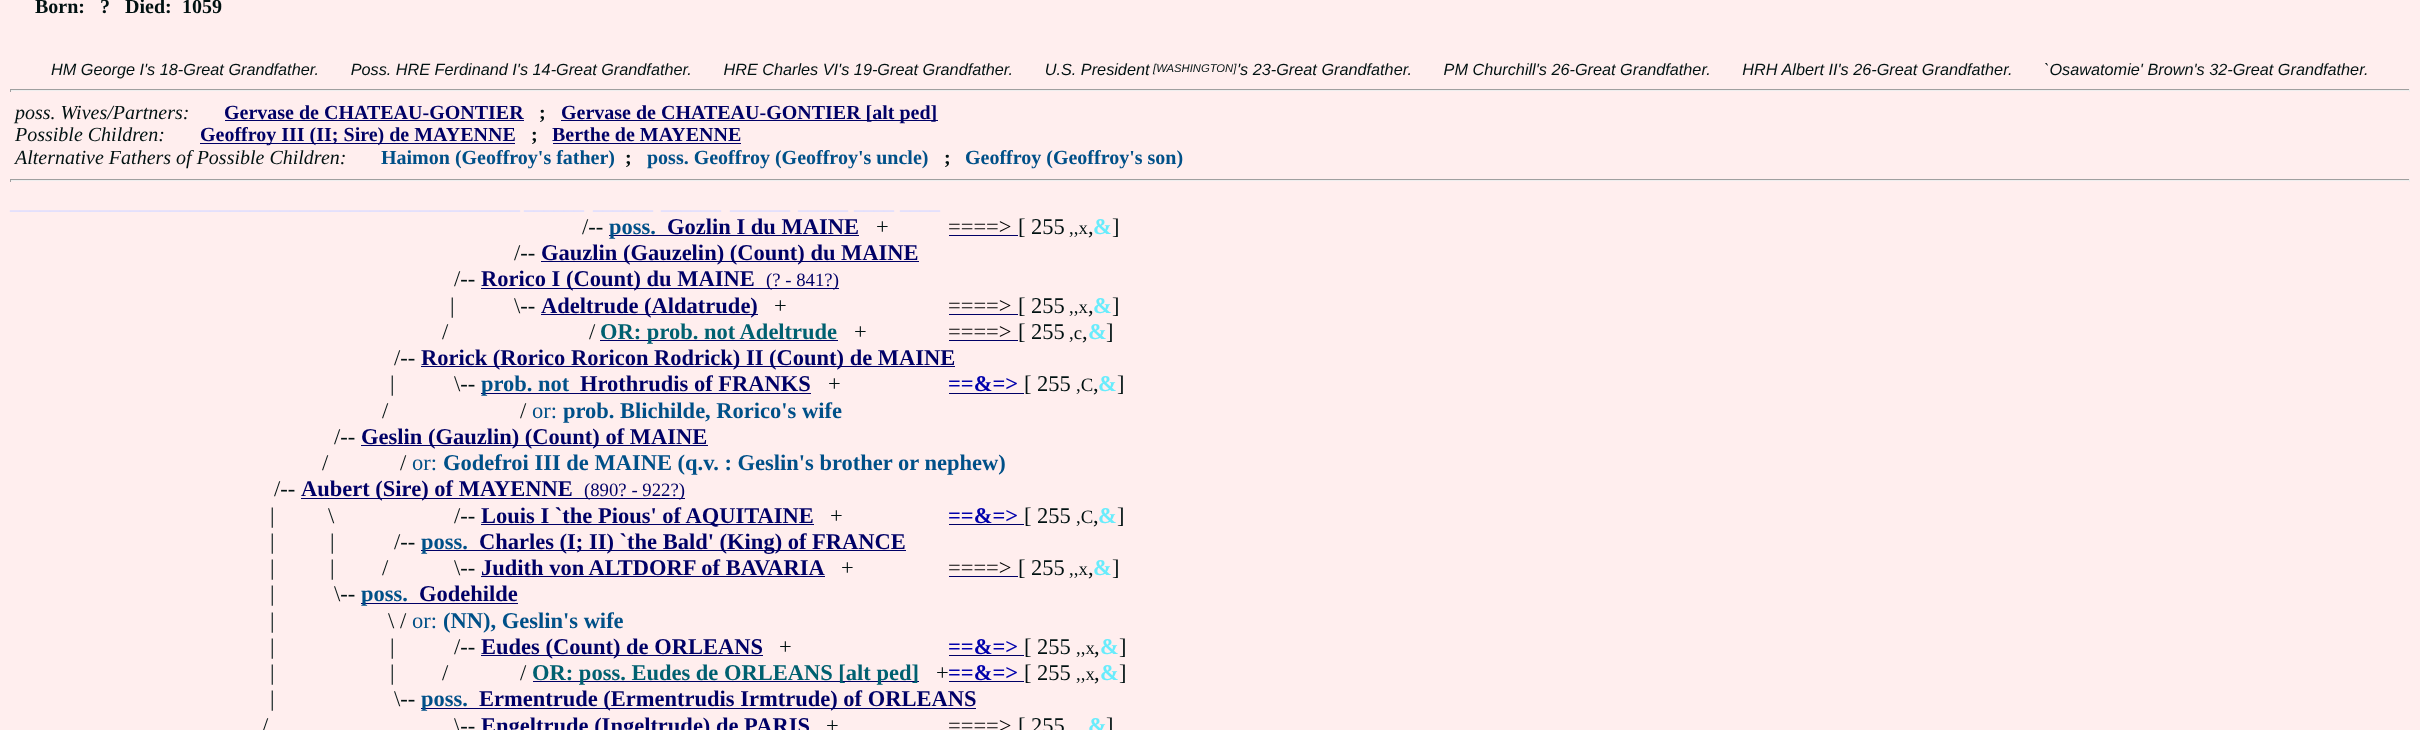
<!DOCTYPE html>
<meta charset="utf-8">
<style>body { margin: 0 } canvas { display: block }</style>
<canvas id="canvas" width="2420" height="730"></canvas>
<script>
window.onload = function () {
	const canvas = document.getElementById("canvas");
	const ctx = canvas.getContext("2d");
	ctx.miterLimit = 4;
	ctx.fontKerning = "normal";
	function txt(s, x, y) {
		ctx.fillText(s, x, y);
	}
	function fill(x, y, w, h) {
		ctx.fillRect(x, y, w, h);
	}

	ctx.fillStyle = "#FFEEEE";
	fill(0, 0, 2420, 730);
	ctx.fillStyle = "#9F9F9F";
	fill(10, 89, 2400, 1);
	ctx.fillStyle = "#EEEEEE";
	fill(2409, 89, 1, 3);
	fill(10, 90, 2400, 1);
	ctx.fillStyle = "#9F9F9F";
	fill(10, 89, 1, 3);
	ctx.fillStyle = "#000066";
	fill(225, 120, 299, 1);
	fill(561, 120, 377, 1);
	fill(200, 143, 315, 1);
	fill(553, 143, 188, 1);
	ctx.fillStyle = "#9F9F9F";
	fill(10, 179, 2400, 1);
	ctx.fillStyle = "#EEEEEE";
	fill(2409, 179, 1, 3);
	fill(10, 180, 2400, 1);
	ctx.fillStyle = "#9F9F9F";
	fill(10, 179, 1, 3);
	ctx.fillStyle = "#000066";
	fill(609, 235, 250, 1);
	fill(949, 235, 69, 1);
	fill(541, 261, 378, 1);
	fill(481, 288, 358, 1);
	fill(541, 314, 217, 1);
	fill(949, 314, 69, 1);
	fill(600, 340, 238, 1);
	fill(949, 340, 69, 1);
	fill(421, 366, 534, 1);
	fill(481, 393, 330, 1);
	fill(949, 393, 75, 1);
	fill(361, 445, 347, 1);
	fill(301, 498, 384, 1);
	fill(481, 524, 333, 1);
	fill(949, 524, 75, 1);
	fill(421, 550, 485, 1);
	fill(481, 576, 344, 1);
	fill(949, 576, 69, 1);
	fill(361, 603, 157, 1);
	fill(481, 655, 282, 1);
	fill(949, 655, 75, 1);
	fill(533, 681, 386, 1);
	fill(949, 681, 75, 1);
	fill(421, 708, 555, 1);
	ctx.font = "bold 20px Liberation Serif";
	ctx.fillStyle = "#001111";
	txt("Born:", 35, 13);
	txt("?   Died:", 100, 13);
	txt("1059", 182, 13);
	ctx.font = "italic 16.25px Liberation Sans";
	txt("HM George I's 18-Great Grandfather.       Poss. HRE Ferdinand I's 14-Great Grandfather.       HRE Charles VI's 19-Great Grandfather.       U.S. President", 51, 75);
	ctx.font = "italic 11.25px Liberation Sans";
	txt("[WASHINGTON]", 1153, 72);
	ctx.font = "italic 16.25px Liberation Sans";
	txt("'s 23-Great Grandfather.       PM Churchill's 26-Great Grandfather.       HRH Albert II's 26-Great Grandfather.       `Osawatomie' Brown's 32-Great Grandfather.", 1237, 75);
	ctx.font = "italic 20px Liberation Serif";
	txt("poss. Wives/Partners:", 15, 119);
	ctx.font = "bold 20px Liberation Serif";
	ctx.fillStyle = "#000066";
	txt("Gervase de CHATEAU-GONTIER", 224, 119);
	ctx.fillStyle = "#001111";
	txt(";", 539, 119);
	ctx.fillStyle = "#000066";
	txt("Gervase de CHATEAU-GONTIER [alt ped]", 561, 119);
	ctx.font = "italic 20px Liberation Serif";
	ctx.fillStyle = "#001111";
	txt("Possible Children:", 15, 141);
	ctx.font = "bold 20px Liberation Serif";
	ctx.fillStyle = "#000066";
	txt("Geoffroy III (II; Sire) de MAYENNE", 200, 141);
	ctx.fillStyle = "#001111";
	txt(";", 531, 141);
	ctx.fillStyle = "#000066";
	txt("Berthe de MAYENNE", 552, 141);
	ctx.font = "italic 20px Liberation Serif";
	ctx.fillStyle = "#001111";
	txt("Alternative Fathers of Possible Children:", 15, 164);
	ctx.font = "bold 20px Liberation Serif";
	ctx.fillStyle = "#005088";
	txt("Haimon (Geoffroy's father)", 381, 164);
	ctx.fillStyle = "#001111";
	txt(";", 625, 164);
	ctx.fillStyle = "#005088";
	txt("poss. Geoffroy (Geoffroy's uncle)", 647, 164);
	ctx.fillStyle = "#001111";
	txt(";", 944, 164);
	ctx.fillStyle = "#005088";
	txt("Geoffroy (Geoffroy's son)", 965, 164);
	ctx.fillStyle = "#DDDDFF";
	txt("___________________________________________________", 10, 209);
	txt("______", 524, 209);
	txt("______", 593, 209);
	txt("______", 661, 209);
	txt("______", 730, 209);
	txt("_____", 798, 209);
	txt("____", 854, 209);
	txt("____", 900, 209);
	ctx.font = "22.5px Liberation Serif";
	ctx.fillStyle = "#001111";
	txt("/--", 582, 234);
	ctx.font = "bold 22.5px Liberation Serif";
	ctx.fillStyle = "#005088";
	txt("poss.", 609, 234);
	ctx.fillStyle = "#000066";
	txt("Gozlin I du MAINE", 667, 234);
	ctx.font = "22.5px Liberation Serif";
	ctx.fillStyle = "#001111";
	txt("+", 876, 234);
	ctx.fillStyle = "#000000";
	txt("====>", 948, 234);
	ctx.fillStyle = "#001111";
	txt("[ 255", 1018, 234);
	ctx.font = "18.75px Liberation Serif";
	txt(",,x", 1069, 234);
	ctx.font = "22.5px Liberation Serif";
	txt(",", 1088, 234);
	ctx.font = "bold 22.5px Liberation Serif";
	ctx.fillStyle = "#68ECFC";
	txt("&", 1093, 234);
	ctx.font = "22.5px Liberation Serif";
	ctx.fillStyle = "#001111";
	txt("]", 1112, 234);
	txt("/--", 514, 260);
	ctx.font = "bold 22.5px Liberation Serif";
	ctx.fillStyle = "#000066";
	txt("Gauzlin (Gauzelin) (Count) du MAINE", 541, 260);
	ctx.font = "22.5px Liberation Serif";
	ctx.fillStyle = "#001111";
	txt("/--", 454, 286);
	ctx.font = "bold 22.5px Liberation Serif";
	ctx.fillStyle = "#000066";
	txt("Rorico I (Count) du MAINE", 481, 286);
	ctx.font = "18.75px Liberation Serif";
	txt("(? - 841?)", 766, 286);
	ctx.font = "22.5px Liberation Serif";
	ctx.fillStyle = "#001111";
	txt("|", 450, 313);
	txt("\\--", 514, 313);
	ctx.font = "bold 22.5px Liberation Serif";
	ctx.fillStyle = "#000066";
	txt("Adeltrude (Aldatrude)", 541, 313);
	ctx.font = "22.5px Liberation Serif";
	ctx.fillStyle = "#001111";
	txt("+", 774, 313);
	ctx.fillStyle = "#000000";
	txt("====>", 948, 313);
	ctx.fillStyle = "#001111";
	txt("[ 255", 1018, 313);
	ctx.font = "18.75px Liberation Serif";
	txt(",,x", 1069, 313);
	ctx.font = "22.5px Liberation Serif";
	txt(",", 1088, 313);
	ctx.font = "bold 22.5px Liberation Serif";
	ctx.fillStyle = "#68ECFC";
	txt("&", 1093, 313);
	ctx.font = "22.5px Liberation Serif";
	ctx.fillStyle = "#001111";
	txt("]", 1112, 313);
	txt("/", 442, 339);
	txt("/", 589, 339);
	ctx.font = "bold 22.5px Liberation Serif";
	ctx.fillStyle = "#006070";
	txt("OR: prob. not Adeltrude", 600, 339);
	ctx.font = "22.5px Liberation Serif";
	ctx.fillStyle = "#001111";
	txt("+", 854, 339);
	ctx.fillStyle = "#000000";
	txt("====>", 948, 339);
	ctx.fillStyle = "#001111";
	txt("[ 255", 1018, 339);
	ctx.font = "18.75px Liberation Serif";
	txt(",c", 1069, 339);
	ctx.font = "22.5px Liberation Serif";
	txt(",", 1082, 339);
	ctx.font = "bold 22.5px Liberation Serif";
	ctx.fillStyle = "#68ECFC";
	txt("&", 1088, 339);
	ctx.font = "22.5px Liberation Serif";
	ctx.fillStyle = "#001111";
	txt("]", 1106, 339);
	txt("/--", 394, 365);
	ctx.font = "bold 22.5px Liberation Serif";
	ctx.fillStyle = "#000066";
	txt("Rorick (Rorico Roricon Rodrick) II (Count) de MAINE", 421, 365);
	ctx.font = "22.5px Liberation Serif";
	ctx.fillStyle = "#001111";
	txt("|", 390, 391);
	txt("\\--", 454, 391);
	ctx.font = "bold 22.5px Liberation Serif";
	ctx.fillStyle = "#005088";
	txt("prob. not", 481, 391);
	ctx.fillStyle = "#000066";
	txt("Hrothrudis of FRANKS", 580, 391);
	ctx.font = "22.5px Liberation Serif";
	ctx.fillStyle = "#001111";
	txt("+", 828, 391);
	ctx.font = "bold 22.5px Liberation Serif";
	ctx.fillStyle = "#0000AC";
	txt("==&=>", 948, 391);
	ctx.font = "22.5px Liberation Serif";
	ctx.fillStyle = "#001111";
	txt("[ 255", 1024, 391);
	ctx.font = "18.75px Liberation Serif";
	txt(",C", 1076, 391);
	ctx.font = "22.5px Liberation Serif";
	txt(",", 1093, 391);
	ctx.font = "bold 22.5px Liberation Serif";
	ctx.fillStyle = "#68ECFC";
	txt("&", 1098, 391);
	ctx.font = "22.5px Liberation Serif";
	ctx.fillStyle = "#001111";
	txt("]", 1117, 391);
	txt("/", 382, 418);
	txt("/", 520, 418);
	ctx.fillStyle = "#005088";
	txt("or:", 532, 418);
	ctx.font = "bold 22.5px Liberation Serif";
	txt("prob. Blichilde, Rorico's wife", 563, 418);
	ctx.font = "22.5px Liberation Serif";
	ctx.fillStyle = "#001111";
	txt("/--", 334, 444);
	ctx.font = "bold 22.5px Liberation Serif";
	ctx.fillStyle = "#000066";
	txt("Geslin (Gauzlin) (Count) of MAINE", 361, 444);
	ctx.font = "22.5px Liberation Serif";
	ctx.fillStyle = "#001111";
	txt("/", 322, 470);
	txt("/", 400, 470);
	ctx.fillStyle = "#005088";
	txt("or:", 412, 470);
	ctx.font = "bold 22.5px Liberation Serif";
	txt("Godefroi III de MAINE (q.v. : Geslin's brother or nephew)", 443, 470);
	ctx.font = "22.5px Liberation Serif";
	ctx.fillStyle = "#001111";
	txt("/--", 274, 496);
	ctx.font = "bold 22.5px Liberation Serif";
	ctx.fillStyle = "#000066";
	txt("Aubert (Sire) of MAYENNE", 301, 496);
	ctx.font = "18.75px Liberation Serif";
	txt("(890? - 922?)", 584, 496);
	ctx.font = "22.5px Liberation Serif";
	ctx.fillStyle = "#001111";
	txt("|", 270, 523);
	txt("\\", 328, 523);
	txt("/--", 454, 523);
	ctx.font = "bold 22.5px Liberation Serif";
	ctx.fillStyle = "#000066";
	txt("Louis I `the Pious' of AQUITAINE", 481, 523);
	ctx.font = "22.5px Liberation Serif";
	ctx.fillStyle = "#001111";
	txt("+", 830, 523);
	ctx.font = "bold 22.5px Liberation Serif";
	ctx.fillStyle = "#0000AC";
	txt("==&=>", 948, 523);
	ctx.font = "22.5px Liberation Serif";
	ctx.fillStyle = "#001111";
	txt("[ 255", 1024, 523);
	ctx.font = "18.75px Liberation Serif";
	txt(",C", 1076, 523);
	ctx.font = "22.5px Liberation Serif";
	txt(",", 1093, 523);
	ctx.font = "bold 22.5px Liberation Serif";
	ctx.fillStyle = "#68ECFC";
	txt("&", 1098, 523);
	ctx.font = "22.5px Liberation Serif";
	ctx.fillStyle = "#001111";
	txt("]", 1117, 523);
	txt("|", 270, 549);
	txt("|", 330, 549);
	txt("/--", 394, 549);
	ctx.font = "bold 22.5px Liberation Serif";
	ctx.fillStyle = "#005088";
	txt("poss.", 421, 549);
	ctx.fillStyle = "#000066";
	txt("Charles (I; II) `the Bald' (King) of FRANCE", 479, 549);
	ctx.font = "22.5px Liberation Serif";
	ctx.fillStyle = "#001111";
	txt("|", 270, 575);
	txt("|", 330, 575);
	txt("/", 382, 575);
	txt("\\--", 454, 575);
	ctx.font = "bold 22.5px Liberation Serif";
	ctx.fillStyle = "#000066";
	txt("Judith von ALTDORF of BAVARIA", 481, 575);
	ctx.font = "22.5px Liberation Serif";
	ctx.fillStyle = "#001111";
	txt("+", 841, 575);
	ctx.fillStyle = "#000000";
	txt("====>", 948, 575);
	ctx.fillStyle = "#001111";
	txt("[ 255", 1018, 575);
	ctx.font = "18.75px Liberation Serif";
	txt(",,x", 1069, 575);
	ctx.font = "22.5px Liberation Serif";
	txt(",", 1088, 575);
	ctx.font = "bold 22.5px Liberation Serif";
	ctx.fillStyle = "#68ECFC";
	txt("&", 1093, 575);
	ctx.font = "22.5px Liberation Serif";
	ctx.fillStyle = "#001111";
	txt("]", 1112, 575);
	txt("|", 270, 601);
	txt("\\--", 334, 601);
	ctx.font = "bold 22.5px Liberation Serif";
	ctx.fillStyle = "#005088";
	txt("poss.", 361, 601);
	ctx.fillStyle = "#000066";
	txt("Godehilde", 419, 601);
	ctx.font = "22.5px Liberation Serif";
	ctx.fillStyle = "#001111";
	txt("|", 270, 628);
	txt("\\ /", 388, 628);
	ctx.fillStyle = "#005088";
	txt("or:", 412, 628);
	ctx.font = "bold 22.5px Liberation Serif";
	txt("(NN), Geslin's wife", 443, 628);
	ctx.font = "22.5px Liberation Serif";
	ctx.fillStyle = "#001111";
	txt("|", 270, 654);
	txt("|", 390, 654);
	txt("/--", 454, 654);
	ctx.font = "bold 22.5px Liberation Serif";
	ctx.fillStyle = "#000066";
	txt("Eudes (Count) de ORLEANS", 481, 654);
	ctx.font = "22.5px Liberation Serif";
	ctx.fillStyle = "#001111";
	txt("+", 779, 654);
	ctx.font = "bold 22.5px Liberation Serif";
	ctx.fillStyle = "#0000AC";
	txt("==&=>", 948, 654);
	ctx.font = "22.5px Liberation Serif";
	ctx.fillStyle = "#001111";
	txt("[ 255", 1024, 654);
	ctx.font = "18.75px Liberation Serif";
	txt(",,x", 1076, 654);
	ctx.font = "22.5px Liberation Serif";
	txt(",", 1094, 654);
	ctx.font = "bold 22.5px Liberation Serif";
	ctx.fillStyle = "#68ECFC";
	txt("&", 1100, 654);
	ctx.font = "22.5px Liberation Serif";
	ctx.fillStyle = "#001111";
	txt("]", 1119, 654);
	txt("|", 270, 680);
	txt("|", 390, 680);
	txt("/", 442, 680);
	txt("/", 520, 680);
	ctx.font = "bold 22.5px Liberation Serif";
	ctx.fillStyle = "#006070";
	txt("OR: poss. Eudes de ORLEANS [alt ped]", 532, 680);
	ctx.font = "22.5px Liberation Serif";
	ctx.fillStyle = "#001111";
	txt("+", 936, 680);
	ctx.font = "bold 22.5px Liberation Serif";
	ctx.fillStyle = "#0000AC";
	txt("==&=>", 948, 680);
	ctx.font = "22.5px Liberation Serif";
	ctx.fillStyle = "#001111";
	txt("[ 255", 1024, 680);
	ctx.font = "18.75px Liberation Serif";
	txt(",,x", 1076, 680);
	ctx.font = "22.5px Liberation Serif";
	txt(",", 1094, 680);
	ctx.font = "bold 22.5px Liberation Serif";
	ctx.fillStyle = "#68ECFC";
	txt("&", 1100, 680);
	ctx.font = "22.5px Liberation Serif";
	ctx.fillStyle = "#001111";
	txt("]", 1119, 680);
	txt("|", 270, 706);
	txt("\\--", 394, 706);
	ctx.font = "bold 22.5px Liberation Serif";
	ctx.fillStyle = "#005088";
	txt("poss.", 421, 706);
	ctx.fillStyle = "#000066";
	txt("Ermentrude (Ermentrudis Irmtrude) of ORLEANS", 479, 706);
	ctx.font = "22.5px Liberation Serif";
	ctx.fillStyle = "#001111";
	txt("/", 262, 733);
	txt("\\--", 454, 733);
	ctx.font = "bold 22.5px Liberation Serif";
	ctx.fillStyle = "#000066";
	txt("Engeltrude (Ingeltrude) de PARIS", 481, 733);
	ctx.font = "22.5px Liberation Serif";
	ctx.fillStyle = "#001111";
	txt("+", 826, 733);
	ctx.fillStyle = "#000000";
	txt("====>", 948, 733);
	ctx.fillStyle = "#001111";
	txt("[ 255", 1018, 733);
	ctx.font = "bold 22.5px Liberation Serif";
	ctx.fillStyle = "#68ECFC";
	txt("&", 1088, 733);
	ctx.font = "22.5px Liberation Serif";
	ctx.fillStyle = "#001111";
	txt("]", 1106, 733);
};
</script>
